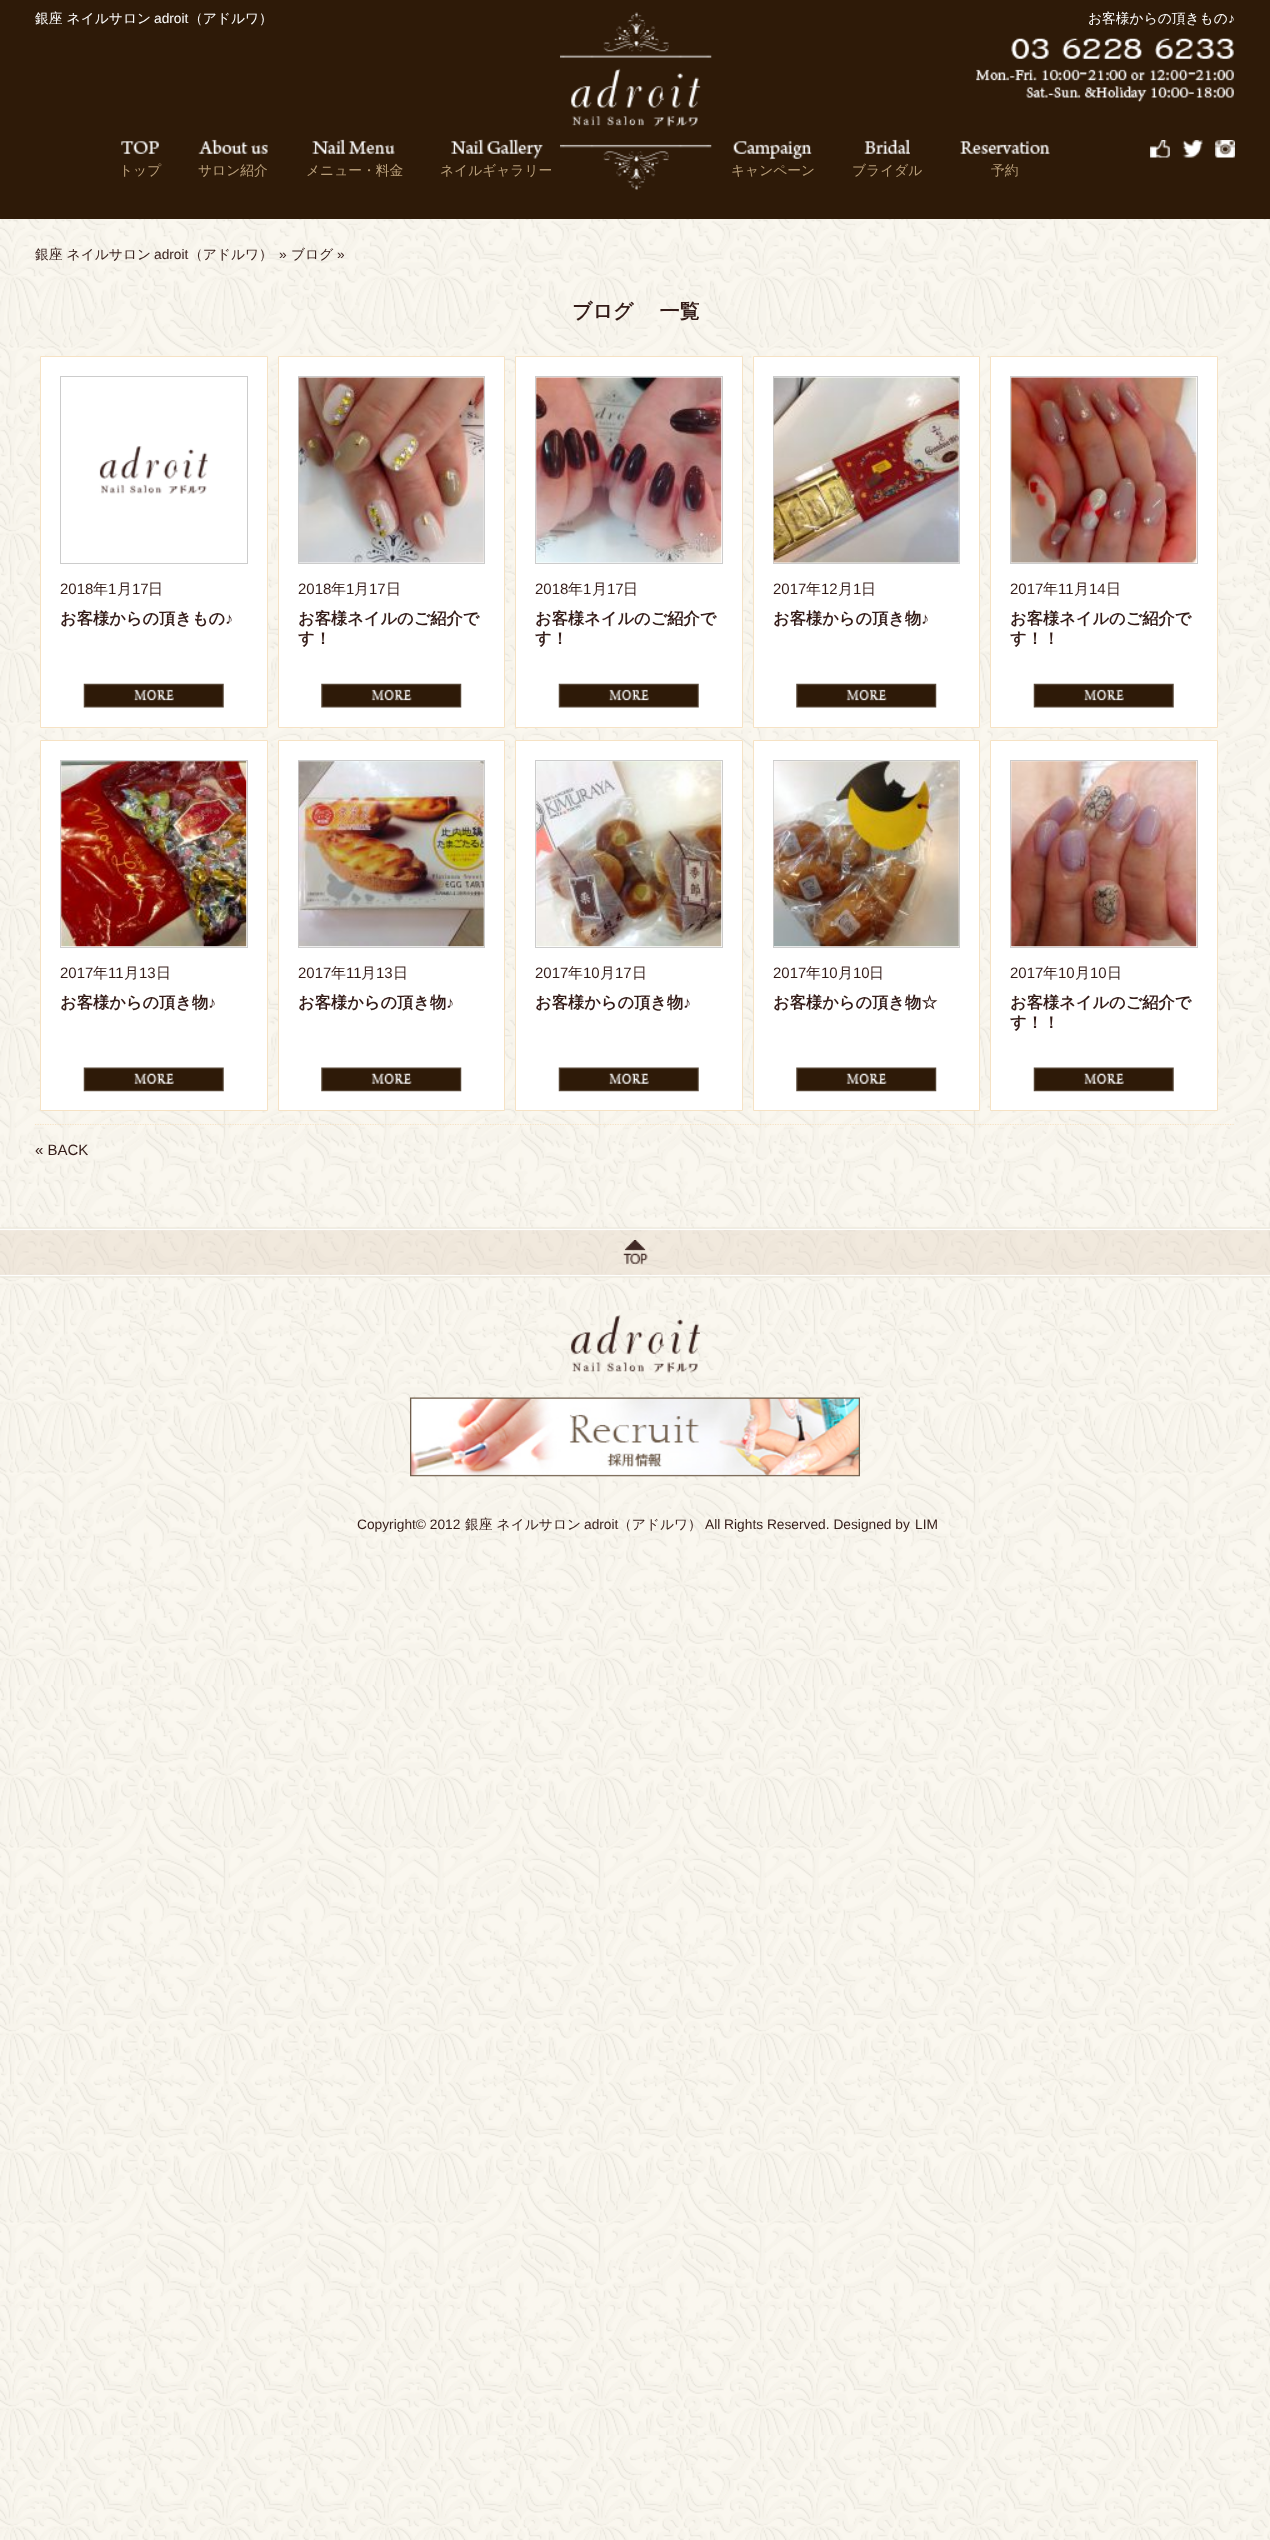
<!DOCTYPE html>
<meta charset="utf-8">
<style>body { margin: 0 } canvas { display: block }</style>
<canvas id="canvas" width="1270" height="2540"></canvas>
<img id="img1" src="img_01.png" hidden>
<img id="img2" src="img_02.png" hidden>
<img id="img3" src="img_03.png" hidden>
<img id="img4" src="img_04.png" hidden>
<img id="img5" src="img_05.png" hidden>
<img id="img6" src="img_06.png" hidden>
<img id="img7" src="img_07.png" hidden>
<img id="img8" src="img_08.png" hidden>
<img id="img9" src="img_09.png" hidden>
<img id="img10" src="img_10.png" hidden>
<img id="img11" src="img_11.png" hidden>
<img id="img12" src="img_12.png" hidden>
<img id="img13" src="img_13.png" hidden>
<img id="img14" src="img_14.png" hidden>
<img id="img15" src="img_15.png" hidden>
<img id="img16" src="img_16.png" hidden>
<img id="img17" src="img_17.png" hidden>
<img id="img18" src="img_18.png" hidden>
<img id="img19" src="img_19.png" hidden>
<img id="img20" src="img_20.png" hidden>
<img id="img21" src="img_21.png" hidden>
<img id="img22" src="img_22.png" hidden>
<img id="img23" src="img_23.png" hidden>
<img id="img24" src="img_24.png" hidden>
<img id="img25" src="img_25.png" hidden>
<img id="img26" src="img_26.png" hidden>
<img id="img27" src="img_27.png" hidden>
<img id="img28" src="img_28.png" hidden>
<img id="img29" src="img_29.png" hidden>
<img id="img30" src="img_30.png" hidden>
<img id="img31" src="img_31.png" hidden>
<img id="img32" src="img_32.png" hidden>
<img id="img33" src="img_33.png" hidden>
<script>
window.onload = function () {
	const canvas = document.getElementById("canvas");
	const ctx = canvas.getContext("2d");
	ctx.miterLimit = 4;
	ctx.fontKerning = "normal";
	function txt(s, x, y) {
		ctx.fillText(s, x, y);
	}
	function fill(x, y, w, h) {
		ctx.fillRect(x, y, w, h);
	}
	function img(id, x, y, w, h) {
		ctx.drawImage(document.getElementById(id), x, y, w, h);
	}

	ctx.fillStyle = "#FFFFFF";
	fill(0, 0, 1270, 2540);
	img("img1", 0, 219, 1270, 2321);
	ctx.fillStyle = "#2E1A08";
	fill(0, 0, 1270, 219);
	img("img2", 560, 12, 152, 178);
	img("img3", 976, 38, 258, 64);
	img("img4", 1150, 140, 20, 18);
	img("img5", 1182, 140, 21, 18);
	img("img6", 1215, 140, 20, 18);
	img("img7", 121, 141, 38, 13);
	img("img8", 198, 139, 70, 15);
	img("img9", 312, 139, 83, 15);
	img("img10", 451, 139, 92, 20);
	img("img11", 733, 141, 79, 19);
	img("img12", 863, 139, 47, 15);
	img("img13", 960, 141, 90, 13);
	ctx.fillStyle = "#FFFFFF";
	ctx.beginPath();
	ctx.rect(40.5, 356.5, 227, 371);
	ctx.fill();
	ctx.strokeStyle = "#F6E2C4";
	ctx.stroke();
	ctx.strokeStyle = "#CCCCCC";
	ctx.strokeRect(60.5, 376.5, 187, 187);
	img("img14", 99, 446, 109, 48);
	img("img15", 83, 683, 141, 25);
	ctx.beginPath();
	ctx.rect(278.5, 356.5, 226, 371);
	ctx.fill();
	ctx.strokeStyle = "#F6E2C4";
	ctx.stroke();
	ctx.strokeStyle = "#CCCCCC";
	ctx.strokeRect(298.5, 376.5, 186, 187);
	img("img16", 298, 377, 186, 186);
	img("img17", 321, 683, 141, 25);
	ctx.beginPath();
	ctx.rect(515.5, 356.5, 227, 371);
	ctx.fill();
	ctx.strokeStyle = "#F6E2C4";
	ctx.stroke();
	ctx.strokeStyle = "#CCCCCC";
	ctx.strokeRect(535.5, 376.5, 187, 187);
	img("img18", 536, 377, 186, 186);
	img("img15", 558, 683, 141, 25);
	ctx.beginPath();
	ctx.rect(753.5, 356.5, 226, 371);
	ctx.fill();
	ctx.strokeStyle = "#F6E2C4";
	ctx.stroke();
	ctx.strokeStyle = "#CCCCCC";
	ctx.strokeRect(773.5, 376.5, 186, 187);
	img("img19", 773, 377, 186, 186);
	img("img17", 796, 683, 141, 25);
	ctx.beginPath();
	ctx.rect(990.5, 356.5, 227, 371);
	ctx.fill();
	ctx.strokeStyle = "#F6E2C4";
	ctx.stroke();
	ctx.strokeStyle = "#CCCCCC";
	ctx.strokeRect(1010.5, 376.5, 187, 187);
	img("img20", 1011, 377, 186, 186);
	img("img21", 1033, 683, 141, 25);
	ctx.beginPath();
	ctx.rect(40.5, 740.5, 227, 370);
	ctx.fill();
	ctx.strokeStyle = "#F6E2C4";
	ctx.stroke();
	ctx.strokeStyle = "#CCCCCC";
	ctx.strokeRect(60.5, 760.5, 187, 187);
	img("img22", 61, 761, 186, 186);
	img("img23", 83, 1067, 141, 25);
	ctx.beginPath();
	ctx.rect(278.5, 740.5, 226, 370);
	ctx.fill();
	ctx.strokeStyle = "#F6E2C4";
	ctx.stroke();
	ctx.strokeStyle = "#CCCCCC";
	ctx.strokeRect(298.5, 760.5, 186, 187);
	img("img24", 298, 761, 186, 186);
	img("img25", 321, 1067, 141, 25);
	ctx.beginPath();
	ctx.rect(515.5, 740.5, 227, 370);
	ctx.fill();
	ctx.strokeStyle = "#F6E2C4";
	ctx.stroke();
	ctx.strokeStyle = "#CCCCCC";
	ctx.strokeRect(535.5, 760.5, 187, 187);
	img("img26", 536, 761, 186, 186);
	img("img23", 558, 1067, 141, 25);
	ctx.beginPath();
	ctx.rect(753.5, 740.5, 226, 370);
	ctx.fill();
	ctx.strokeStyle = "#F6E2C4";
	ctx.stroke();
	ctx.strokeStyle = "#CCCCCC";
	ctx.strokeRect(773.5, 760.5, 186, 187);
	img("img27", 773, 761, 186, 186);
	img("img25", 796, 1067, 141, 25);
	ctx.beginPath();
	ctx.rect(990.5, 740.5, 227, 370);
	ctx.fill();
	ctx.strokeStyle = "#F6E2C4";
	ctx.stroke();
	ctx.strokeStyle = "#CCCCCC";
	ctx.strokeRect(1010.5, 760.5, 187, 187);
	img("img28", 1011, 761, 186, 186);
	img("img29", 1033, 1067, 141, 25);
	ctx.beginPath();
	ctx.moveTo(35, 1124.5);
	ctx.lineTo(1235, 1124.5);
	ctx.strokeStyle = "#F6E2C4";
	ctx.lineWidth = 1.2;
	ctx.setLineDash([1.25, 1.25]);
	ctx.stroke();
	img("img30", 0, 1227, 1270, 51);
	img("img31", 623, 1240, 25, 25);
	img("img32", 571, 1315, 129, 58);
	img("img33", 410, 1397, 450, 80);
	ctx.font = "500 13.75px WenQuanYi Zen Hei";
	txt("銀座 ネイルサロン", 35, 23);
	ctx.font = "13.75px Liberation Sans";
	txt("adroit", 154, 23);
	ctx.font = "500 13.75px WenQuanYi Zen Hei";
	txt("（アドルワ）", 189, 23);
	txt("お客様からの頂きもの", 1088, 23);
	ctx.font = "13.75px Liberation Sans";
	txt("♪", 1228, 23);
	ctx.font = "500 13.75px WenQuanYi Zen Hei";
	ctx.fillStyle = "#B89E7A";
	txt("トップ", 119, 175);
	txt("サロン紹介", 198, 175);
	txt("メニュー・料金", 306, 175);
	txt("ネイルギャラリー", 440, 175);
	txt("キャンペーン", 731, 175);
	txt("ブライダル", 852, 175);
	txt("予約", 991, 175);
	ctx.fillStyle = "#341C18";
	txt("銀座 ネイルサロン", 35, 259);
	ctx.font = "13.75px Liberation Sans";
	txt("adroit", 154, 259);
	ctx.font = "500 13.75px WenQuanYi Zen Hei";
	txt("（アドルワ）", 189, 259);
	ctx.font = "13.75px Liberation Sans";
	txt("»", 279, 259);
	ctx.font = "500 13.75px WenQuanYi Zen Hei";
	txt("ブログ", 291, 259);
	ctx.font = "13.75px Liberation Sans";
	txt("»", 337, 259);
	ctx.font = "bold 20px WenQuanYi Zen Hei";
	txt("ブログ　 一覧", 572, 318);
	ctx.font = "15px Liberation Sans";
	txt("2018", 60, 594);
	ctx.font = "500 15px WenQuanYi Zen Hei";
	txt("年", 93, 594);
	ctx.font = "15px Liberation Sans";
	txt("1", 108, 594);
	ctx.font = "500 15px WenQuanYi Zen Hei";
	txt("月", 117, 594);
	ctx.font = "15px Liberation Sans";
	txt("17", 132, 594);
	ctx.font = "500 15px WenQuanYi Zen Hei";
	txt("日", 148, 594);
	ctx.font = "bold 16.25px WenQuanYi Zen Hei";
	txt("お客様からの頂きもの", 60, 624);
	ctx.font = "bold 16.25px Liberation Sans";
	txt("♪", 225, 624);
	ctx.font = "15px Liberation Sans";
	txt("2018", 298, 594);
	ctx.font = "500 15px WenQuanYi Zen Hei";
	txt("年", 331, 594);
	ctx.font = "15px Liberation Sans";
	txt("1", 346, 594);
	ctx.font = "500 15px WenQuanYi Zen Hei";
	txt("月", 354, 594);
	ctx.font = "15px Liberation Sans";
	txt("17", 369, 594);
	ctx.font = "500 15px WenQuanYi Zen Hei";
	txt("日", 386, 594);
	ctx.font = "bold 16.25px WenQuanYi Zen Hei";
	txt("お客様ネイルのご紹介で", 298, 624);
	txt("す！", 298, 644);
	ctx.font = "15px Liberation Sans";
	txt("2018", 535, 594);
	ctx.font = "500 15px WenQuanYi Zen Hei";
	txt("年", 568, 594);
	ctx.font = "15px Liberation Sans";
	txt("1", 583, 594);
	ctx.font = "500 15px WenQuanYi Zen Hei";
	txt("月", 592, 594);
	ctx.font = "15px Liberation Sans";
	txt("17", 607, 594);
	ctx.font = "500 15px WenQuanYi Zen Hei";
	txt("日", 623, 594);
	ctx.font = "bold 16.25px WenQuanYi Zen Hei";
	txt("お客様ネイルのご紹介で", 535, 624);
	txt("す！", 535, 644);
	ctx.font = "15px Liberation Sans";
	txt("2017", 773, 594);
	ctx.font = "500 15px WenQuanYi Zen Hei";
	txt("年", 806, 594);
	ctx.font = "15px Liberation Sans";
	txt("12", 821, 594);
	ctx.font = "500 15px WenQuanYi Zen Hei";
	txt("月", 838, 594);
	ctx.font = "15px Liberation Sans";
	txt("1", 853, 594);
	ctx.font = "500 15px WenQuanYi Zen Hei";
	txt("日", 861, 594);
	ctx.font = "bold 16.25px WenQuanYi Zen Hei";
	txt("お客様からの頂き物", 773, 624);
	ctx.font = "bold 16.25px Liberation Sans";
	txt("♪", 921, 624);
	ctx.font = "15px Liberation Sans";
	txt("2017", 1010, 594);
	ctx.font = "500 15px WenQuanYi Zen Hei";
	txt("年", 1043, 594);
	ctx.font = "15px Liberation Sans";
	txt("11", 1058, 594);
	ctx.font = "500 15px WenQuanYi Zen Hei";
	txt("月", 1074, 594);
	ctx.font = "15px Liberation Sans";
	txt("14", 1089, 594);
	ctx.font = "500 15px WenQuanYi Zen Hei";
	txt("日", 1106, 594);
	ctx.font = "bold 16.25px WenQuanYi Zen Hei";
	txt("お客様ネイルのご紹介で", 1010, 624);
	txt("す！！", 1010, 644);
	ctx.font = "15px Liberation Sans";
	txt("2017", 60, 978);
	ctx.font = "500 15px WenQuanYi Zen Hei";
	txt("年", 93, 978);
	ctx.font = "15px Liberation Sans";
	txt("11", 108, 978);
	ctx.font = "500 15px WenQuanYi Zen Hei";
	txt("月", 124, 978);
	ctx.font = "15px Liberation Sans";
	txt("13", 139, 978);
	ctx.font = "500 15px WenQuanYi Zen Hei";
	txt("日", 156, 978);
	ctx.font = "bold 16.25px WenQuanYi Zen Hei";
	txt("お客様からの頂き物", 60, 1008);
	ctx.font = "bold 16.25px Liberation Sans";
	txt("♪", 208, 1008);
	ctx.font = "15px Liberation Sans";
	txt("2017", 298, 978);
	ctx.font = "500 15px WenQuanYi Zen Hei";
	txt("年", 331, 978);
	ctx.font = "15px Liberation Sans";
	txt("11", 346, 978);
	ctx.font = "500 15px WenQuanYi Zen Hei";
	txt("月", 361, 978);
	ctx.font = "15px Liberation Sans";
	txt("13", 376, 978);
	ctx.font = "500 15px WenQuanYi Zen Hei";
	txt("日", 393, 978);
	ctx.font = "bold 16.25px WenQuanYi Zen Hei";
	txt("お客様からの頂き物", 298, 1008);
	ctx.font = "bold 16.25px Liberation Sans";
	txt("♪", 446, 1008);
	ctx.font = "15px Liberation Sans";
	txt("2017", 535, 978);
	ctx.font = "500 15px WenQuanYi Zen Hei";
	txt("年", 568, 978);
	ctx.font = "15px Liberation Sans";
	txt("10", 583, 978);
	ctx.font = "500 15px WenQuanYi Zen Hei";
	txt("月", 600, 978);
	ctx.font = "15px Liberation Sans";
	txt("17", 615, 978);
	ctx.font = "500 15px WenQuanYi Zen Hei";
	txt("日", 632, 978);
	ctx.font = "bold 16.25px WenQuanYi Zen Hei";
	txt("お客様からの頂き物", 535, 1008);
	ctx.font = "bold 16.25px Liberation Sans";
	txt("♪", 683, 1008);
	ctx.font = "15px Liberation Sans";
	txt("2017", 773, 978);
	ctx.font = "500 15px WenQuanYi Zen Hei";
	txt("年", 806, 978);
	ctx.font = "15px Liberation Sans";
	txt("10", 821, 978);
	ctx.font = "500 15px WenQuanYi Zen Hei";
	txt("月", 838, 978);
	ctx.font = "15px Liberation Sans";
	txt("10", 853, 978);
	ctx.font = "500 15px WenQuanYi Zen Hei";
	txt("日", 869, 978);
	ctx.font = "bold 16.25px WenQuanYi Zen Hei";
	txt("お客様からの頂き物☆", 773, 1008);
	ctx.font = "15px Liberation Sans";
	txt("2017", 1010, 978);
	ctx.font = "500 15px WenQuanYi Zen Hei";
	txt("年", 1043, 978);
	ctx.font = "15px Liberation Sans";
	txt("10", 1058, 978);
	ctx.font = "500 15px WenQuanYi Zen Hei";
	txt("月", 1075, 978);
	ctx.font = "15px Liberation Sans";
	txt("10", 1090, 978);
	ctx.font = "500 15px WenQuanYi Zen Hei";
	txt("日", 1107, 978);
	ctx.font = "bold 16.25px WenQuanYi Zen Hei";
	txt("お客様ネイルのご紹介で", 1010, 1008);
	txt("す！！", 1010, 1028);
	ctx.font = "15px Liberation Sans";
	txt("« BACK", 35, 1155);
	ctx.font = "13.75px Liberation Sans";
	txt("Copyright© 2012", 357, 1529);
	ctx.font = "500 13.75px WenQuanYi Zen Hei";
	txt("銀座 ネイルサロン", 465, 1529);
	ctx.font = "13.75px Liberation Sans";
	txt("adroit", 584, 1529);
	ctx.font = "500 13.75px WenQuanYi Zen Hei";
	txt("（アドルワ）", 618, 1529);
	ctx.font = "13.75px Liberation Sans";
	txt("All Rights Reserved. Designed by", 705, 1529);
	txt("LIM", 915, 1529);
};
</script>
